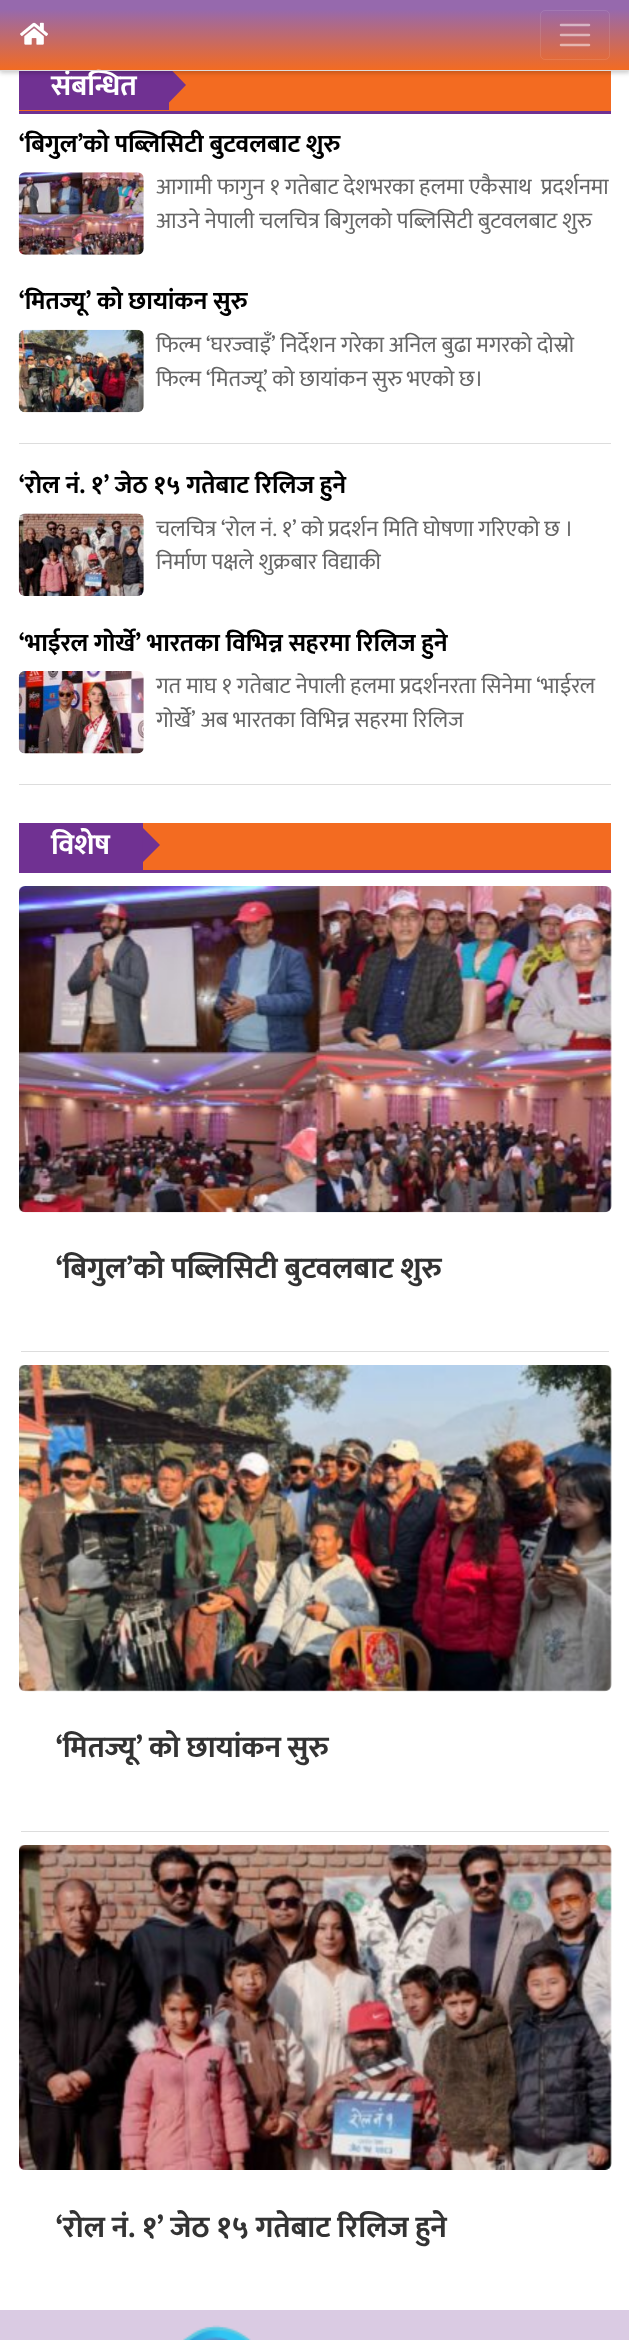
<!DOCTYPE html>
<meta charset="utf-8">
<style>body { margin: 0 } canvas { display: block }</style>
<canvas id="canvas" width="629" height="2340"></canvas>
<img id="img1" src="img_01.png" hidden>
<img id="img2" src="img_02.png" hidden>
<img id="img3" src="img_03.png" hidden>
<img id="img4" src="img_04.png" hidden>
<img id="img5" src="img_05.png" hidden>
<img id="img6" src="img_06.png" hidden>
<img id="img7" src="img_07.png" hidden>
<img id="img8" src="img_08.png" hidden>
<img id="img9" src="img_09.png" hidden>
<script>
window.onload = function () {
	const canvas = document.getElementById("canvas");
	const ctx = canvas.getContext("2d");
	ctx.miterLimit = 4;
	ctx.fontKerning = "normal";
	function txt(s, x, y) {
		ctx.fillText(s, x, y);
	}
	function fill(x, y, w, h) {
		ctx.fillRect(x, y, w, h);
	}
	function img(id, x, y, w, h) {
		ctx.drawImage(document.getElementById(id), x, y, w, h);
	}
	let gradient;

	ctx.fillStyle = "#FFFFFF";
	fill(0, 0, 629, 2340);
	ctx.fillStyle = "#F36B21";
	fill(19, 71, 592, 40);
	ctx.fillStyle = "#703192";
	fill(19, 71, 150, 39);
	ctx.beginPath();
	ctx.moveTo(169, 102.5);
	ctx.lineTo(169, 67.5);
	ctx.lineTo(186, 85);
	ctx.closePath();
	ctx.fill();
	ctx.fillStyle = "rgba(0, 0, 0, 0.2)";
	ctx.filter = "blur(2px)";
	ctx.beginPath();
	ctx.rect(0, 1, 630, 72);
	ctx.fill();
	ctx.filter = "none";
	gradient = ctx.createLinearGradient(315, 70, 315, 0);
	gradient.addColorStop(0, "#F36B21");
	gradient.addColorStop(0.87, "#9669AD");
	ctx.fillStyle = gradient;
	fill(0, 0, 629, 70);
	img("img1", 20, 22, 28, 23);
	ctx.beginPath();
	ctx.roundRect(540.5, 10.5, 69, 49, 4.5);
	ctx.strokeStyle = "rgba(255, 255, 255, 0.1)";
	ctx.stroke();
	ctx.beginPath();
	ctx.moveTo(561, 25);
	ctx.lineTo(589, 25);
	ctx.moveTo(561, 35);
	ctx.lineTo(589, 35);
	ctx.moveTo(561, 45);
	ctx.lineTo(589, 45);
	ctx.strokeStyle = "rgba(255, 255, 255, 0.5)";
	ctx.lineWidth = 2.5;
	ctx.lineCap = "round";
	ctx.stroke();
	ctx.fillStyle = "#703192";
	fill(19, 111, 592, 3);
	img("img2", 18, 172, 126, 83);
	img("img3", 18, 329, 126, 84);
	ctx.fillStyle = "#DDDDDD";
	fill(19, 443, 592, 1);
	img("img4", 18, 513, 126, 83);
	img("img5", 18, 671, 126, 83);
	fill(19, 784, 592, 1);
	ctx.fillStyle = "#F36B21";
	fill(143, 823, 468, 47);
	ctx.fillStyle = "#703192";
	fill(19, 870, 592, 3);
	fill(19, 823, 124, 47);
	ctx.beginPath();
	ctx.moveTo(142.5, 862.5);
	ctx.lineTo(142.5, 827.5);
	ctx.lineTo(160, 845);
	ctx.closePath();
	ctx.fill();
	ctx.fillStyle = "#DDDDDD";
	fill(21, 1351, 588, 1);
	img("img6", 19, 886, 593, 327);
	fill(21, 1831, 588, 1);
	img("img7", 19, 1365, 593, 327);
	img("img8", 19, 1845, 593, 325);
	ctx.fillStyle = "#DACBE3";
	fill(0, 2310, 629, 30);
	img("img9", 183, 2325, 68, 15);
	ctx.font = "bold 29px Mukta";
	ctx.fillStyle = "#FFFFFF";
	txt("संबन्धित", 51, 95);
	ctx.fillStyle = "#DDDDDD";
	fill(0, 70, 629, 1);
	ctx.font = "bold 25px Mukta";
	ctx.fillStyle = "#000000";
	txt("‘बिगुल’को पब्लिसिटी बुटवलबाट शुरु", 19, 152);
	ctx.font = "22.5px Mukta";
	ctx.fillStyle = "#656565";
	txt("आगामी फागुन १ गतेबाट देशभरका हलमा एकैसाथ  प्रदर्शनमा", 156, 194);
	txt("आउने नेपाली चलचित्र बिगुलको पब्लिसिटी बुटवलबाट शुरु", 156, 228);
	ctx.font = "bold 25px Mukta";
	ctx.fillStyle = "#000000";
	txt("‘मितज्यू’ को छायांकन सुरु", 19, 309);
	ctx.wordSpacing = "-0.25px";
	ctx.font = "22.5px Mukta";
	ctx.fillStyle = "#656565";
	txt("फिल्म ‘घरज्वाइँ’ निर्देशन गरेका अनिल बुढा मगरको दोस्रो", 156, 352);
	txt("फिल्म ‘मितज्यू’ को छायांकन सुरु भएको छ।", 156, 386);
	ctx.wordSpacing = "0px";
	ctx.font = "bold 25px Mukta";
	ctx.fillStyle = "#000000";
	txt("‘रोल नं. १’ जेठ १५ गतेबाट रिलिज हुने", 19, 493);
	ctx.wordSpacing = "-0.25px";
	ctx.font = "22.5px Mukta";
	ctx.fillStyle = "#656565";
	txt("चलचित्र ‘रोल नं. १’ को प्रदर्शन मिति घोषणा गरिएको छ ।", 156, 536);
	ctx.wordSpacing = "0px";
	txt("निर्माण पक्षले शुक्रबार विद्याकी", 156, 569);
	ctx.font = "bold 25px Mukta";
	ctx.fillStyle = "#000000";
	txt("‘भाईरल गोर्खे’ भारतका विभिन्न सहरमा रिलिज हुने", 19, 651);
	ctx.font = "22.5px Mukta";
	ctx.fillStyle = "#656565";
	txt("गत माघ १ गतेबाट नेपाली हलमा प्रदर्शनरता सिनेमा ‘भाईरल", 156, 693);
	txt("गोर्खे’ अब भारतका विभिन्न सहरमा रिलिज", 156, 727);
	ctx.font = "bold 29px Mukta";
	ctx.fillStyle = "#FFFFFF";
	txt("विशेष", 51, 854);
	ctx.font = "bold 30px Mukta";
	ctx.fillStyle = "#333333";
	txt("‘बिगुल’को पब्लिसिटी बुटवलबाट शुरु", 56, 1278);
	ctx.wordSpacing = "-0.5px";
	txt("‘मितज्यू’ को छायांकन सुरु", 56, 1757);
	ctx.wordSpacing = "-0.25px";
	txt("‘रोल नं. १’ जेठ १५ गतेबाट रिलिज हुने", 56, 2237);
};
</script>
